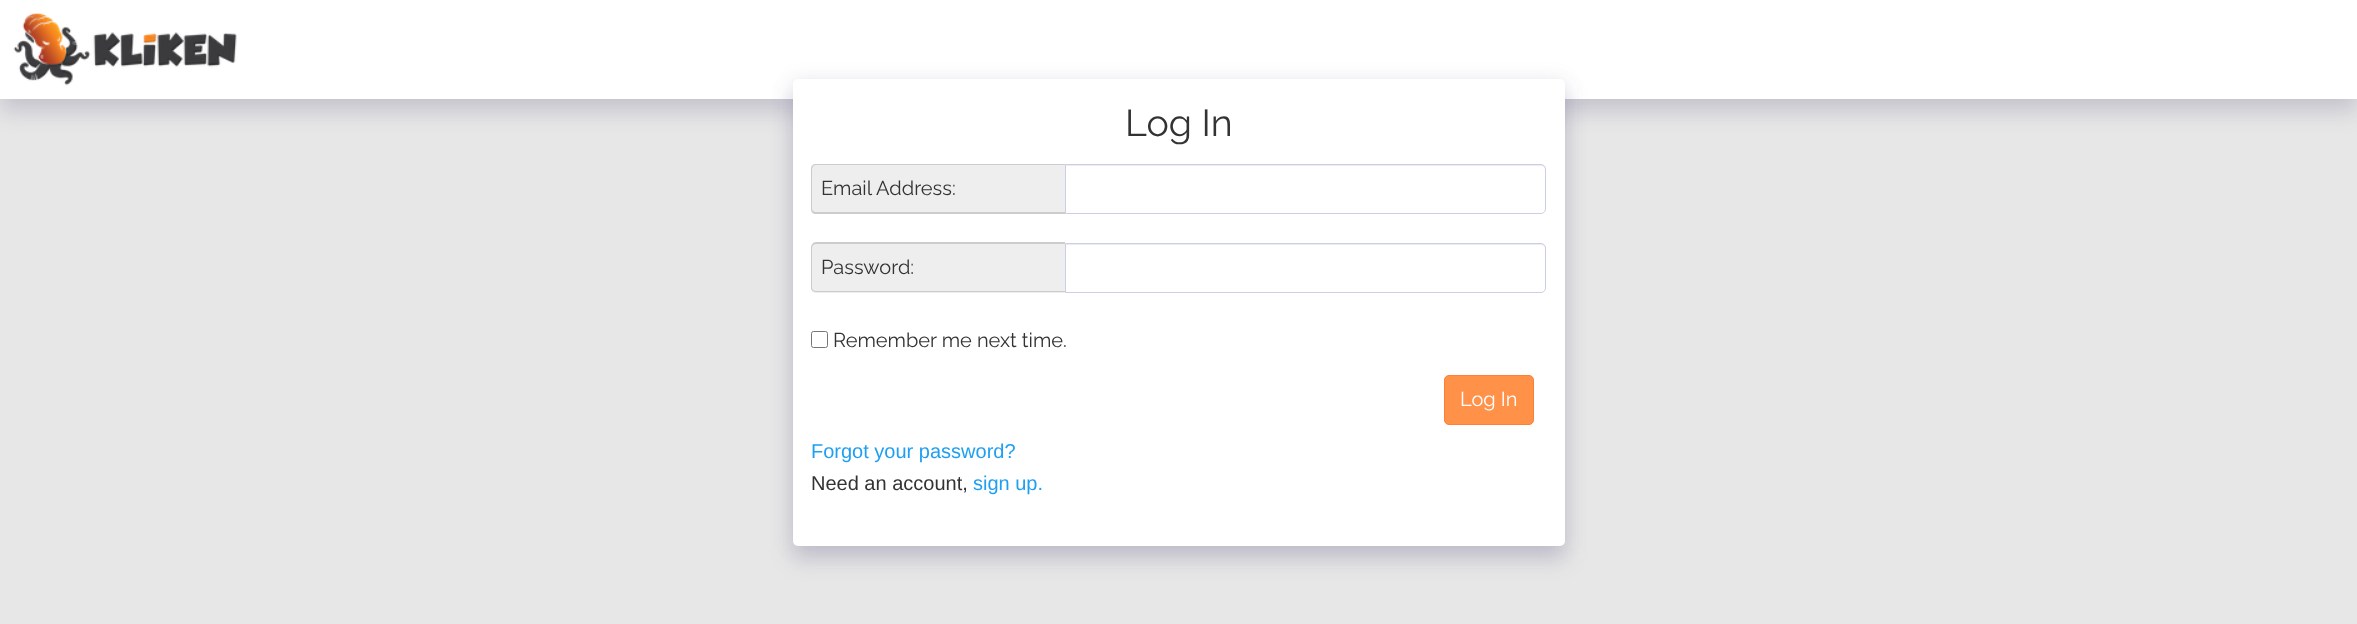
<!DOCTYPE html>
<meta charset="utf-8">
<style>body { margin: 0 } canvas { display: block }</style>
<canvas id="canvas" width="2357" height="624"></canvas>
<img id="img1" src="img_01.png" hidden>
<script>
window.onload = function () {
	const canvas = document.getElementById("canvas");
	const ctx = canvas.getContext("2d");
	ctx.miterLimit = 4;
	ctx.fontKerning = "normal";
	function txt(s, x, y) {
		ctx.fillText(s, x, y);
	}
	function fill(x, y, w, h) {
		ctx.fillRect(x, y, w, h);
	}
	function round(x, y, w, h, r) {
		ctx.beginPath();
		ctx.roundRect(x, y, w, h, r);
		ctx.fill();
	}
	function img(id, x, y, w, h) {
		ctx.drawImage(document.getElementById(id), x, y, w, h);
	}

	ctx.fillStyle = "#E7E7E7";
	fill(0, 0, 2357, 624);
	ctx.fillStyle = "rgba(62, 57, 107, 0.2)";
	ctx.filter = "blur(11px)";
	ctx.beginPath();
	ctx.rect(0, 13, 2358, 98);
	ctx.fill();
	ctx.filter = "none";
	ctx.fillStyle = "#FFFFFF";
	fill(0, 0, 2357, 99);
	img("img1", 13, 12, 224, 74);
	ctx.fillStyle = "rgba(62, 57, 107, 0.2)";
	ctx.filter = "blur(11px)";
	ctx.beginPath();
	ctx.rect(793, 91, 772, 468);
	ctx.fill();
	ctx.filter = "none";
	ctx.fillStyle = "rgba(62, 57, 107, 0.07)";
	ctx.filter = "blur(9.5px)";
	ctx.beginPath();
	ctx.roundRect(791, 79, 775, 470, 6);
	ctx.fill();
	ctx.filter = "none";
	ctx.fillStyle = "#FFFFFF";
	round(793, 79, 772, 467, 5);
	ctx.fillStyle = "#EEEEEE";
	ctx.beginPath();
	ctx.roundRect(811, 164, 254, 50, [5, 0, 0, 5]);
	ctx.fill();
	ctx.fillStyle = "#CCCCCC";
	ctx.beginPath();
	ctx.moveTo(816, 164);
	ctx.lineTo(1065, 164);
	ctx.lineTo(1065, 214);
	ctx.lineTo(816, 214);
	ctx.bezierCurveTo(813, 214, 811, 212, 811, 209);
	ctx.lineTo(811, 169);
	ctx.bezierCurveTo(811, 166, 813, 164, 816, 164);
	ctx.closePath();
	ctx.moveTo(816, 165);
	ctx.lineTo(1065, 165);
	ctx.lineTo(1065, 212);
	ctx.lineTo(816, 212);
	ctx.bezierCurveTo(814, 212, 812, 211, 812, 209);
	ctx.lineTo(812, 169);
	ctx.bezierCurveTo(812, 167, 814, 165, 816, 165);
	ctx.closePath();
	ctx.fill("evenodd");
	ctx.fillStyle = "#ECECEC";
	ctx.beginPath();
	ctx.moveTo(1066, 166);
	ctx.lineTo(1541, 166);
	ctx.bezierCurveTo(1543, 166, 1545, 168, 1545, 170);
	ctx.bezierCurveTo(1545, 167, 1544, 165, 1541, 165);
	ctx.lineTo(1066, 165);
	ctx.closePath();
	ctx.fill();
	ctx.beginPath();
	ctx.roundRect(1065.5, 164.5, 480, 49, [0, 4.5, 4.5, 0]);
	ctx.strokeStyle = "#CACFE7";
	ctx.stroke();
	ctx.fillStyle = "#EEEEEE";
	ctx.beginPath();
	ctx.roundRect(811, 243, 254, 50, [5, 0, 0, 5]);
	ctx.fill();
	ctx.fillStyle = "#CCCCCC";
	ctx.beginPath();
	ctx.moveTo(816, 242);
	ctx.lineTo(1065, 242);
	ctx.lineTo(1065, 292);
	ctx.lineTo(816, 292);
	ctx.bezierCurveTo(813, 292, 811, 290, 811, 288);
	ctx.lineTo(811, 248);
	ctx.bezierCurveTo(811, 245, 813, 242, 816, 242);
	ctx.closePath();
	ctx.moveTo(816, 244);
	ctx.lineTo(1065, 244);
	ctx.lineTo(1065, 291);
	ctx.lineTo(816, 291);
	ctx.bezierCurveTo(814, 291, 812, 290, 812, 288);
	ctx.lineTo(812, 248);
	ctx.bezierCurveTo(812, 245, 814, 244, 816, 244);
	ctx.closePath();
	ctx.fill("evenodd");
	ctx.fillStyle = "#ECECEC";
	ctx.beginPath();
	ctx.moveTo(1066, 245);
	ctx.lineTo(1541, 245);
	ctx.bezierCurveTo(1543, 245, 1545, 247, 1545, 249);
	ctx.bezierCurveTo(1545, 246, 1544, 244, 1541, 244);
	ctx.lineTo(1066, 244);
	ctx.closePath();
	ctx.fill();
	ctx.beginPath();
	ctx.roundRect(1065.5, 243.5, 480, 49, [0, 4.5, 4.5, 0]);
	ctx.stroke();
	ctx.beginPath();
	ctx.roundRect(811.5, 331.5, 16, 16, 2);
	ctx.strokeStyle = "#767676";
	ctx.stroke();
	ctx.fillStyle = "#FF9149";
	ctx.beginPath();
	ctx.roundRect(1444.5, 375.5, 89, 49, 4.5);
	ctx.fill();
	ctx.strokeStyle = "#FF7E39";
	ctx.stroke();
	ctx.font = "37.5px Raleway";
	ctx.fillStyle = "#333333";
	txt("Log In", 1125, 136);
	ctx.font = "20px Raleway";
	txt("Email Address:", 821, 195);
	txt("Password:", 821, 274);
	txt("Remember me next time.", 833, 347);
	ctx.fillStyle = "#FFFFFF";
	txt("Log In", 1460, 406);
	ctx.font = "20px Liberation Sans";
	ctx.fillStyle = "#1E9FF2";
	txt("Forgot your password?", 811, 458);
	ctx.fillStyle = "#333333";
	txt("Need an account,", 811, 490);
	ctx.fillStyle = "#1E9FF2";
	txt("sign up.", 973, 490);
};
</script>
